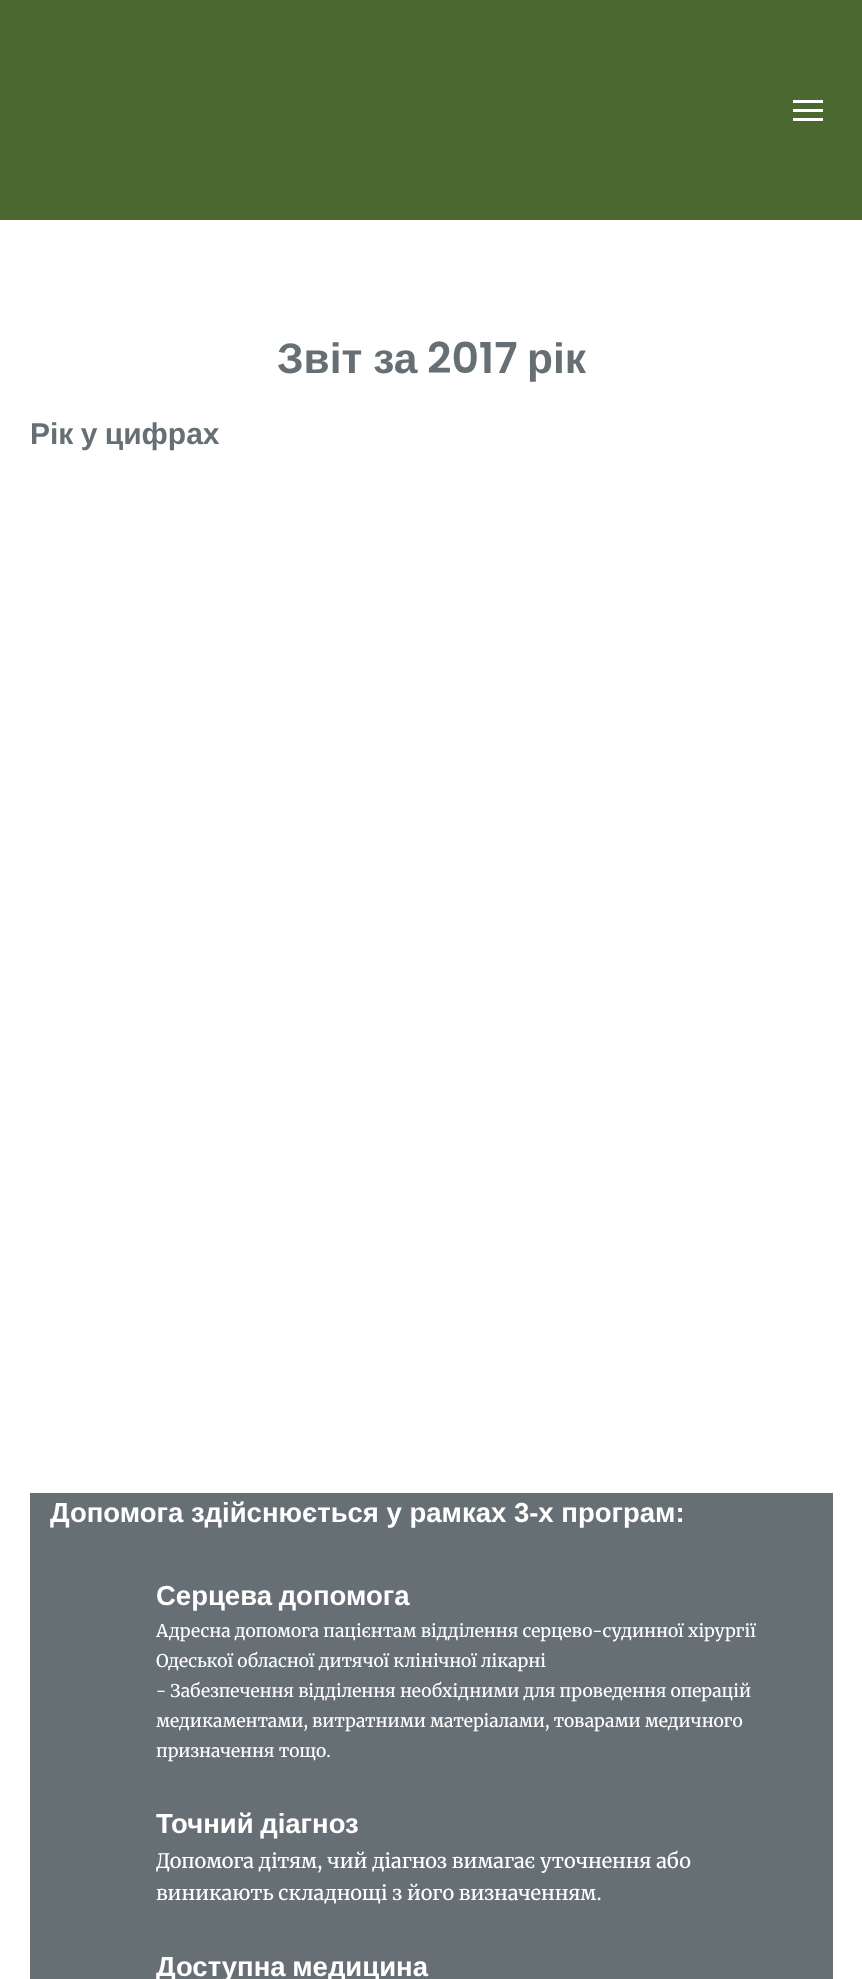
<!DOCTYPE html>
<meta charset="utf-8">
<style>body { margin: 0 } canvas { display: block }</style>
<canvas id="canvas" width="862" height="1979"></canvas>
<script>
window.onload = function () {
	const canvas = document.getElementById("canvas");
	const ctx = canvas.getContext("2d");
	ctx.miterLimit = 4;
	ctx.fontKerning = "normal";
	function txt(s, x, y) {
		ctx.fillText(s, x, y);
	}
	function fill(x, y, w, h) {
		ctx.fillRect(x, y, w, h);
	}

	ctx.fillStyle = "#FFFFFF";
	fill(0, 0, 862, 1979);
	ctx.fillStyle = "#4C6831";
	fill(0, 0, 862, 220);
	ctx.fillStyle = "#FFFFFF";
	fill(793, 100, 30, 3);
	fill(793, 109, 30, 3);
	fill(793, 118, 30, 3);
	ctx.fillStyle = "#667074";
	fill(30, 1493, 803, 486);
	ctx.wordSpacing = "-1px";
	ctx.font = "bold 42.5px Liberation Sans";
	txt("Звіт за", 277, 373);
	ctx.wordSpacing = "0px";
	ctx.font = "600 42.5px Poppins";
	txt("2017", 427, 373);
	ctx.font = "bold 42.5px Liberation Sans";
	txt("рік", 527, 373);
	ctx.wordSpacing = "-1px";
	ctx.font = "bold 30px Liberation Sans";
	txt("Рік у цифрах", 30, 444);
	ctx.wordSpacing = "0px";
	ctx.font = "bold 27.5px Liberation Sans";
	ctx.fillStyle = "#FFFFFF";
	txt("Допомога здійснюється у рамках 3-х програм:", 50, 1522);
	ctx.wordSpacing = "-1px";
	txt("Серцева допомога", 156, 1605);
	ctx.wordSpacing = "0px";
	ctx.font = "17.5px Merriweather";
	txt("Адресна допомога пацієнтам відділення серцево-судинної хірургії", 156, 1637);
	txt("Одеської обласної дитячої клінічної лікарні", 156, 1667);
	txt("- Забезпечення відділення необхідними для проведення операцій", 156, 1697);
	txt("медикаментами, витратними матеріалами, товарами медичного", 156, 1727);
	txt("призначення тощо.", 156, 1757);
	ctx.wordSpacing = "-1px";
	ctx.font = "bold 27.5px Liberation Sans";
	txt("Точний діагноз", 156, 1833);
	ctx.wordSpacing = "0px";
	ctx.font = "20px Merriweather";
	txt("Допомога дітям, чий діагноз вимагає уточнення або", 156, 1868);
	txt("виникають складнощі з його визначенням.", 156, 1900);
	ctx.wordSpacing = "-1px";
	ctx.font = "bold 27.5px Liberation Sans";
	txt("Доступна медицина", 156, 1976);
};
</script>
